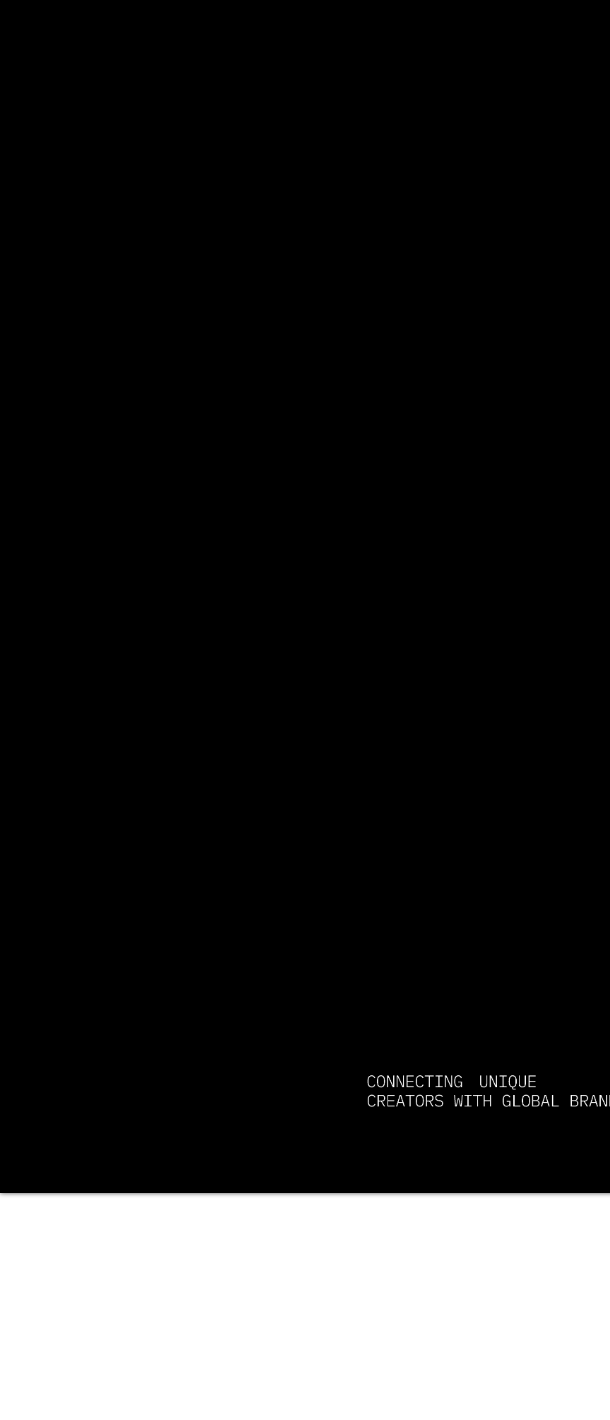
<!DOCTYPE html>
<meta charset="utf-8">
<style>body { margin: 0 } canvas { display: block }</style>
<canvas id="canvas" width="610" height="1420"></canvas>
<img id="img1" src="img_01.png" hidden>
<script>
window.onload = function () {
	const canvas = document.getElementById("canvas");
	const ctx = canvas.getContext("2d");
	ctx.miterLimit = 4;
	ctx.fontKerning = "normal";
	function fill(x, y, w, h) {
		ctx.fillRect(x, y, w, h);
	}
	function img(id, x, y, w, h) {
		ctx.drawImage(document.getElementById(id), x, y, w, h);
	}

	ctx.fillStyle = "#FFFFFF";
	fill(0, 0, 610, 1420);
	ctx.fillStyle = "#000000";
	fill(0, 0, 610, 989);
	ctx.fillStyle = "rgba(0, 0, 0, 0.7)";
	ctx.filter = "blur(2.5px)";
	ctx.beginPath();
	ctx.rect(0, 989, 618, 204);
	ctx.fill();
	ctx.filter = "none";
	ctx.fillStyle = "#000000";
	fill(0, 989, 610, 204);
	img("img1", 367, 1075, 243, 32);
};
</script>
